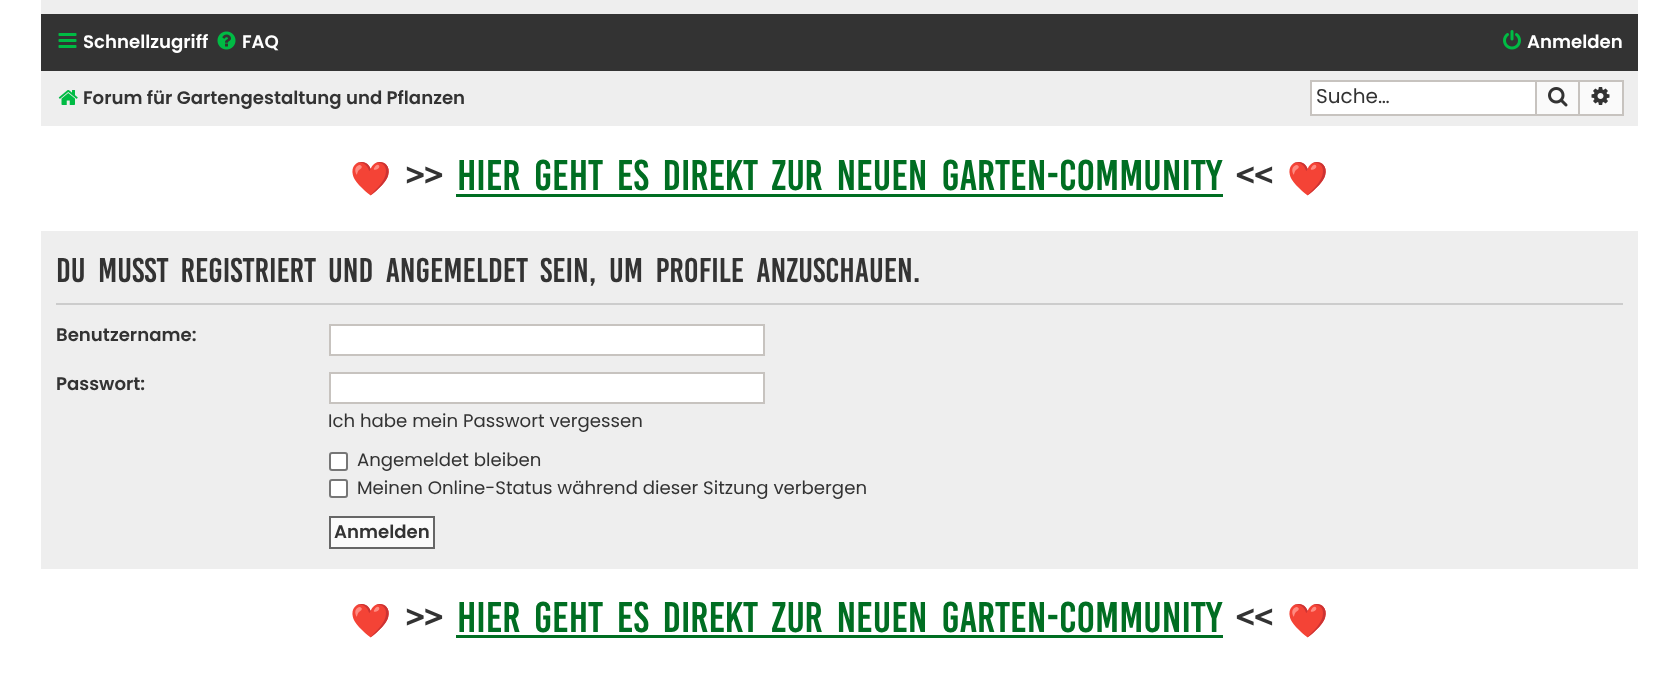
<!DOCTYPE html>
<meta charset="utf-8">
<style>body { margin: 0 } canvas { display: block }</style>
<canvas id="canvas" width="1678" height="689"></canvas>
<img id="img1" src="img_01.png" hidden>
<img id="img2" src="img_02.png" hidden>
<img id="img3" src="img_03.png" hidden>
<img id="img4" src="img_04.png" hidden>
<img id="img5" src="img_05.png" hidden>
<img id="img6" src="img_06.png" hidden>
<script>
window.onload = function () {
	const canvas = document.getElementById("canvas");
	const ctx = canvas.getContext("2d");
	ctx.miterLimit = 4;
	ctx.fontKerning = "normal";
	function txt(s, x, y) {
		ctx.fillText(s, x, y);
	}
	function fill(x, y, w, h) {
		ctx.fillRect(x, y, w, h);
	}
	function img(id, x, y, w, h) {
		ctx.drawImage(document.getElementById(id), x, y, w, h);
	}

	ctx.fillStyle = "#FFFFFF";
	fill(0, 0, 1678, 689);
	ctx.fillStyle = "#EEEEEE";
	fill(41, 0, 1597, 14);
	ctx.fillStyle = "#333333";
	fill(41, 14, 1597, 57);
	img("img1", 58, 33, 19, 15);
	img("img2", 217, 31, 19, 19);
	img("img3", 1503, 30, 18, 20);
	ctx.fillStyle = "#EEEEEE";
	fill(41, 71, 1597, 55);
	img("img4", 58, 90, 20, 15);
	ctx.fillStyle = "#FFFFFF";
	fill(1312, 82, 223, 32);
	ctx.fillStyle = "#C7C3BF";
	fill(1310, 80, 225, 2);
	fill(1310, 114, 225, 2);
	fill(1310, 80, 2, 36);
	ctx.fillStyle = "#FAFAFA";
	ctx.beginPath();
	ctx.rect(1536, 81, 43, 34);
	ctx.fill();
	ctx.strokeStyle = "#C7C3BF";
	ctx.lineWidth = 2;
	ctx.stroke();
	img("img5", 1548, 87, 20, 20);
	fill(1580, 82, 42, 32);
	ctx.fillStyle = "#C7C3BF";
	fill(1580, 80, 43, 2);
	fill(1622, 80, 2, 36);
	fill(1580, 114, 43, 2);
	img("img6", 1591, 87, 19, 18);
	ctx.fillStyle = "#006E22";
	fill(456, 194, 767, 3);
	ctx.fillStyle = "#EEEEEE";
	fill(41, 231, 1597, 338);
	ctx.fillStyle = "#CCCCCC";
	fill(56, 303, 1567, 2);
	ctx.fillStyle = "#FFFFFF";
	ctx.beginPath();
	ctx.rect(330, 325, 434, 30);
	ctx.fill();
	ctx.stroke();
	ctx.beginPath();
	ctx.rect(330, 373, 434, 30);
	ctx.fill();
	ctx.stroke();
	ctx.beginPath();
	ctx.roundRect(330, 453, 17, 17, 2);
	ctx.fill();
	ctx.strokeStyle = "#767676";
	ctx.stroke();
	ctx.beginPath();
	ctx.roundRect(330, 480, 17, 17, 2);
	ctx.fill();
	ctx.stroke();
	ctx.fillStyle = "#FAFAFA";
	ctx.beginPath();
	ctx.rect(330, 517, 104, 31);
	ctx.fill();
	ctx.strokeStyle = "#666666";
	ctx.stroke();
	ctx.fillStyle = "#006E22";
	fill(456, 635, 767, 3);
	ctx.font = "600 18.15px Poppins";
	ctx.fillStyle = "#FFFFFF";
	txt("Schnellzugriff", 83, 48);
	txt("FAQ", 242, 48);
	txt("Anmelden", 1527, 48);
	ctx.fillStyle = "#333333";
	txt("Forum für Gartengestaltung und Pflanzen", 83, 104);
	ctx.font = "20px Poppins";
	txt("Suche…", 1316, 103);
	ctx.font = "33px Noto Color Emoji";
	txt("❤️", 350, 190);
	ctx.font = "33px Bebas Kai";
	txt(">>", 406, 190);
	ctx.wordSpacing = "6px";
	ctx.fillStyle = "#006E22";
	txt("HIER GEHT ES DIREKT ZUR NEUEN GARTEN-COMMUNITY", 457, 190);
	ctx.wordSpacing = "0px";
	ctx.fillStyle = "#333333";
	txt("<<", 1236, 190);
	ctx.font = "33px Noto Color Emoji";
	txt("❤️", 1287, 190);
	ctx.wordSpacing = "6px";
	ctx.font = "26.4px Bebas Kai";
	txt("Du musst registriert und angemeldet sein, um Profile anzuschauen.", 56, 282);
	ctx.wordSpacing = "0px";
	ctx.font = "600 18.15px Poppins";
	txt("Benutzername:", 56, 341);
	txt("Passwort:", 56, 390);
	ctx.font = "18.15px Poppins";
	txt("Ich habe mein Passwort vergessen", 328, 427);
	txt("Angemeldet bleiben", 357, 466);
	txt("Meinen Online-Status während dieser Sitzung verbergen", 357, 494);
	ctx.font = "600 18.15px Poppins";
	txt("Anmelden", 334, 538);
	ctx.font = "33px Noto Color Emoji";
	txt("❤️", 350, 632);
	ctx.font = "33px Bebas Kai";
	txt(">>", 406, 632);
	ctx.wordSpacing = "6px";
	ctx.fillStyle = "#006E22";
	txt("HIER GEHT ES DIREKT ZUR NEUEN GARTEN-COMMUNITY", 457, 632);
	ctx.wordSpacing = "0px";
	ctx.fillStyle = "#333333";
	txt("<<", 1236, 632);
	ctx.font = "33px Noto Color Emoji";
	txt("❤️", 1287, 632);
};
</script>
